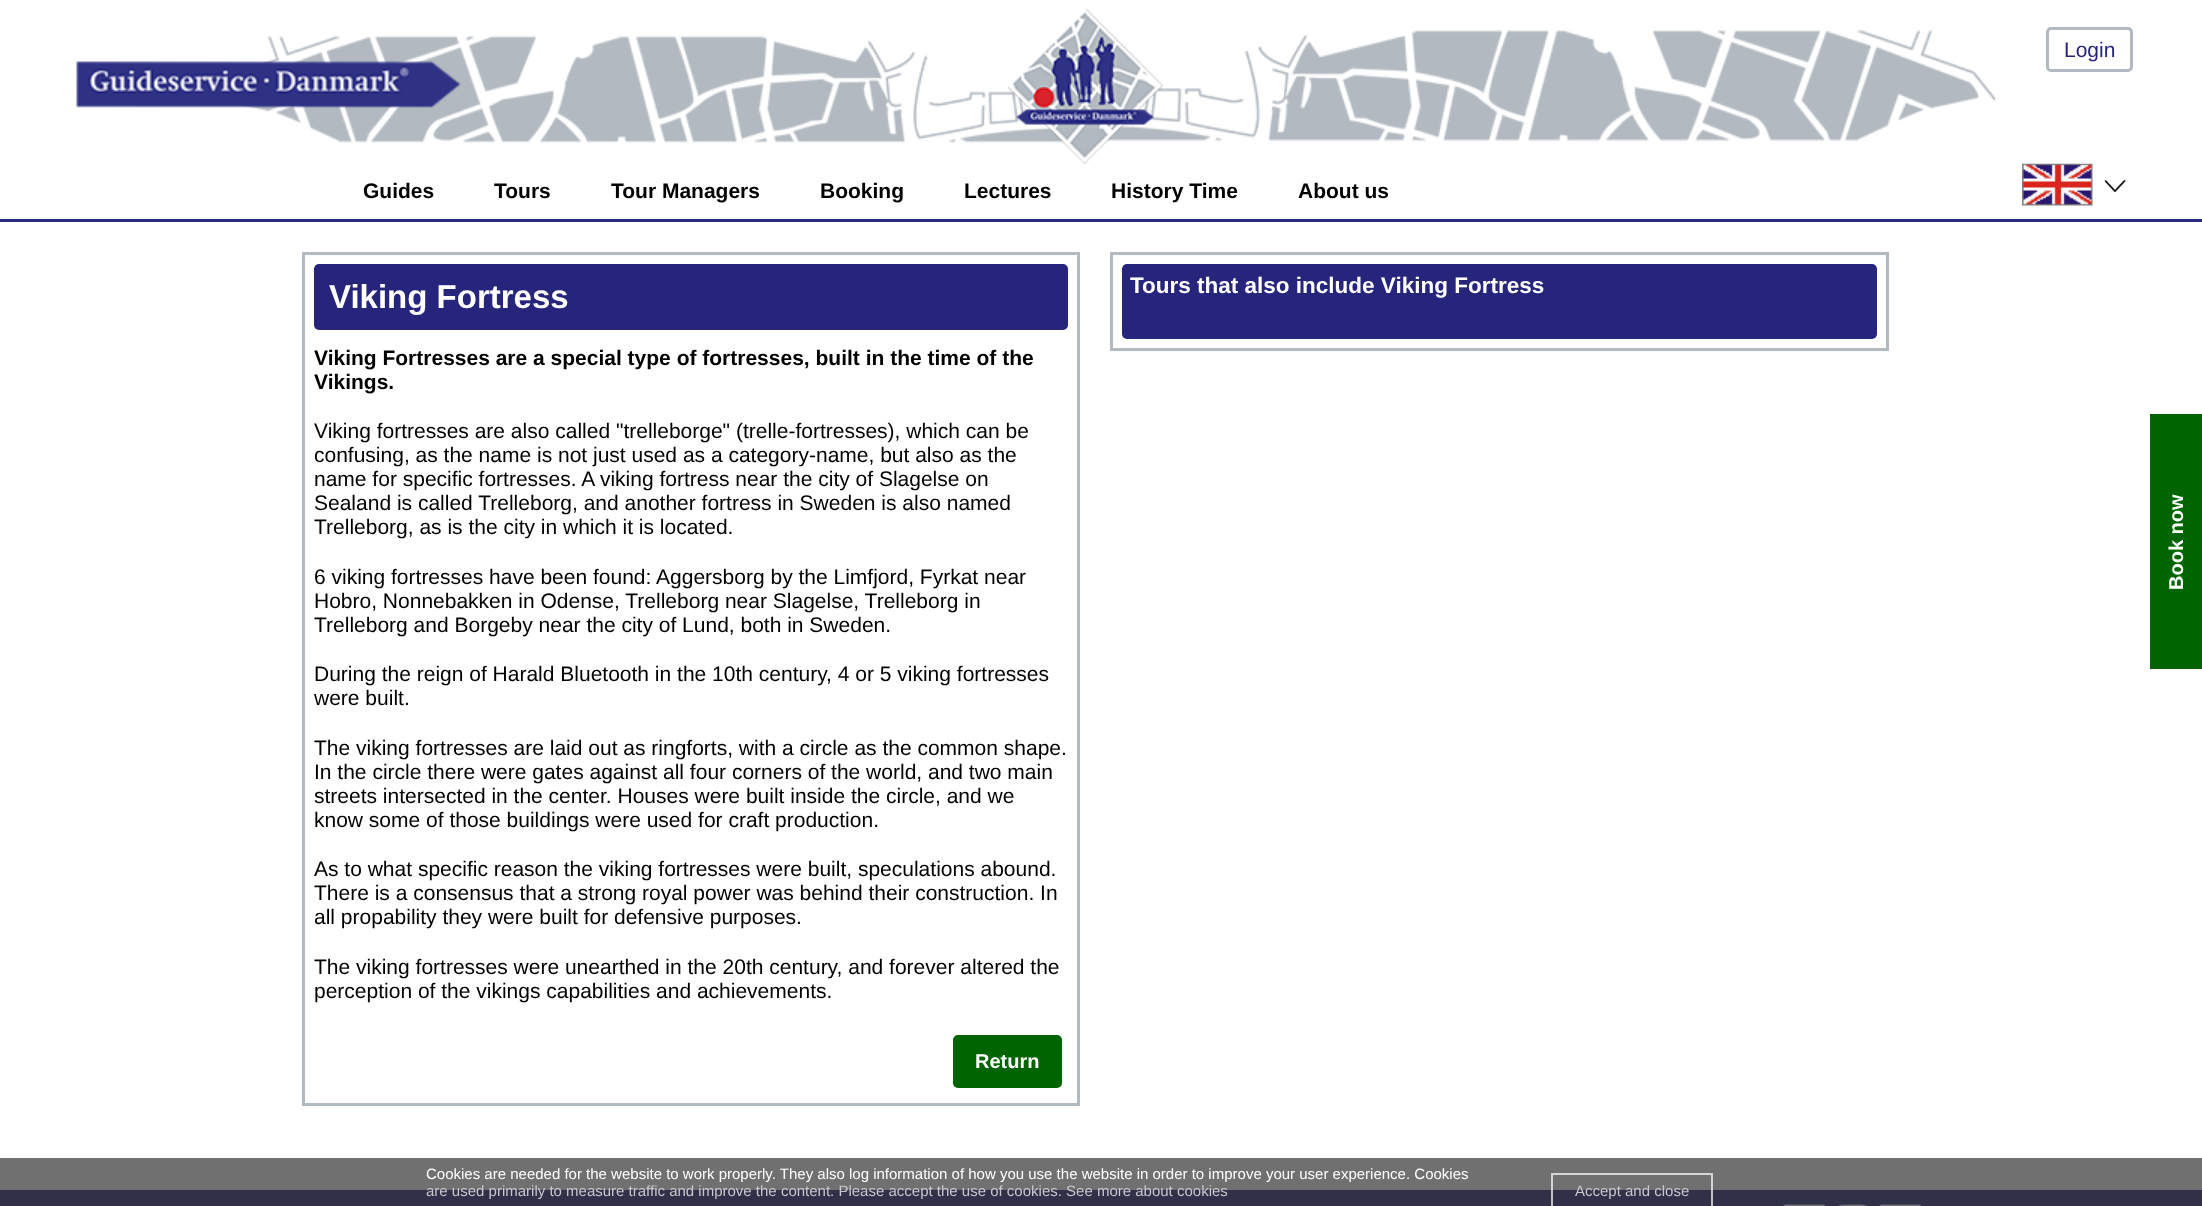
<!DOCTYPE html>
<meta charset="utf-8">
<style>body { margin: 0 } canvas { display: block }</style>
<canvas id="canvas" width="2202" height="1206"></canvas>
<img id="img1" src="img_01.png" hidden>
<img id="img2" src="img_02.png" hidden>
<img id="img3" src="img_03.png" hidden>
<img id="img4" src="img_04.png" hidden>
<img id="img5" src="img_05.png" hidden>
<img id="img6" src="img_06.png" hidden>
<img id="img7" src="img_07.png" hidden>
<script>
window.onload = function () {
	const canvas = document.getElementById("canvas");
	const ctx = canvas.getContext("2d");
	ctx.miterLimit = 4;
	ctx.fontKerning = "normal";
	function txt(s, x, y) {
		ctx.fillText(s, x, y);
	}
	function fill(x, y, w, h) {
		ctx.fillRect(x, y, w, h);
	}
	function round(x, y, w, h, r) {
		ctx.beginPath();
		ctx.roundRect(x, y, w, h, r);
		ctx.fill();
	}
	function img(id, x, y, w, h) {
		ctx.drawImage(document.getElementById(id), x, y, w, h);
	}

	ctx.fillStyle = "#FFFFFF";
	fill(0, 0, 2202, 1206);
	ctx.fillStyle = "#707070";
	fill(0, 1158, 2202, 32);
	ctx.fillStyle = "#2A297D";
	fill(0, 219, 2202, 3);
	img("img1", 207, 7, 1788, 157);
	ctx.beginPath();
	ctx.roundRect(2047.5, 28.5, 84, 42, 3.5);
	ctx.strokeStyle = "#B1BAC2";
	ctx.lineWidth = 3;
	ctx.stroke();
	img("img2", 76, 61, 385, 47);
	img("img3", 2022, 163, 71, 43);
	img("img4", 2104, 180, 22, 12);
	ctx.strokeRect(303.5, 253.5, 775, 851);
	ctx.fillStyle = "#26247B";
	round(314, 264, 754, 66, 5);
	ctx.fillStyle = "#006400";
	round(953, 1035, 109, 53, 5);
	ctx.strokeRect(1111.5, 253.5, 776, 96);
	ctx.fillStyle = "#26247B";
	round(1122, 264, 755, 75, 5);
	ctx.fillStyle = "#006400";
	fill(2150, 414, 52, 255);
	ctx.fillStyle = "#303049";
	fill(0, 1190, 2202, 16);
	img("img5", 1783, 1204, 43, 2);
	img("img6", 1837, 1204, 31, 2);
	img("img7", 1879, 1204, 43, 2);
	ctx.strokeStyle = "rgba(255, 255, 255, 0.7)";
	ctx.lineWidth = 2;
	ctx.strokeRect(1552, 1174, 160, 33);
	ctx.font = "21px Liberation Sans";
	ctx.fillStyle = "#26247B";
	txt("Login", 2064, 57);
	ctx.font = "bold 21px Liberation Sans";
	ctx.fillStyle = "#000000";
	txt("Guides", 363, 198);
	txt("Tours", 494, 198);
	txt("Tour Managers", 611, 198);
	txt("Booking", 820, 198);
	txt("Lectures", 964, 198);
	txt("History Time", 1111, 198);
	txt("About us", 1298, 198);
	ctx.font = "bold 33px Liberation Sans";
	ctx.fillStyle = "#FFFFFF";
	txt("Viking Fortress", 329, 308);
	ctx.font = "bold 21px Liberation Sans";
	ctx.fillStyle = "#000000";
	txt("Viking Fortresses are a special type of fortresses, built in the time of the", 314, 365);
	txt("Vikings.", 314, 389);
	ctx.font = "21px Liberation Sans";
	txt("Viking fortresses are also called \"trelleborge\" (trelle-fortresses), which can be", 314, 438);
	txt("confusing, as the name is not just used as a category-name, but also as the", 314, 462);
	txt("name for specific fortresses. A viking fortress near the city of Slagelse on", 314, 486);
	txt("Sealand is called Trelleborg, and another fortress in Sweden is also named", 314, 510);
	txt("Trelleborg, as is the city in which it is located.", 314, 534);
	txt("6 viking fortresses have been found: Aggersborg by the Limfjord, Fyrkat near", 314, 584);
	txt("Hobro, Nonnebakken in Odense, Trelleborg near Slagelse, Trelleborg in", 314, 608);
	txt("Trelleborg and Borgeby near the city of Lund, both in Sweden.", 314, 632);
	txt("During the reign of Harald Bluetooth in the 10th century, 4 or 5 viking fortresses", 314, 681);
	txt("were built.", 314, 705);
	txt("The viking fortresses are laid out as ringforts, with a circle as the common shape.", 314, 755);
	txt("In the circle there were gates against all four corners of the world, and two main", 314, 779);
	txt("streets intersected in the center. Houses were built inside the circle, and we", 314, 803);
	txt("know some of those buildings were used for craft production.", 314, 827);
	txt("As to what specific reason the viking fortresses were built, speculations abound.", 314, 876);
	txt("There is a consensus that a strong royal power was behind their construction. In", 314, 900);
	txt("all propability they were built for defensive purposes.", 314, 924);
	txt("The viking fortresses were unearthed in the 20th century, and forever altered the", 314, 974);
	txt("perception of the vikings capabilities and achievements.", 314, 998);
	ctx.font = "bold 20px Liberation Sans";
	ctx.fillStyle = "#FFFFFF";
	txt("Return", 975, 1068);
	ctx.font = "bold 22.5px Liberation Sans";
	txt("Tours that also include Viking Fortress", 1130, 293);
	ctx.font = "bold 20px Liberation Sans";
	ctx.save();
	ctx.translate(2183, 590);
	ctx.rotate(-90 * Math.PI / 180);
	ctx.fillText("Book now", 0, 0);
	ctx.restore();
	ctx.font = "15px Liberation Sans";
	txt("Cookies are needed for the website to work properly. They also log information of how you use the website in order to improve your user experience. Cookies", 426, 1179);
	ctx.fillStyle = "#C7C7CC";
	txt("are used primarily to measure traffic and improve the content. Please accept the use of cookies. See more about cookies", 426, 1196);
	txt("Accept and close", 1575, 1196);
};
</script>
